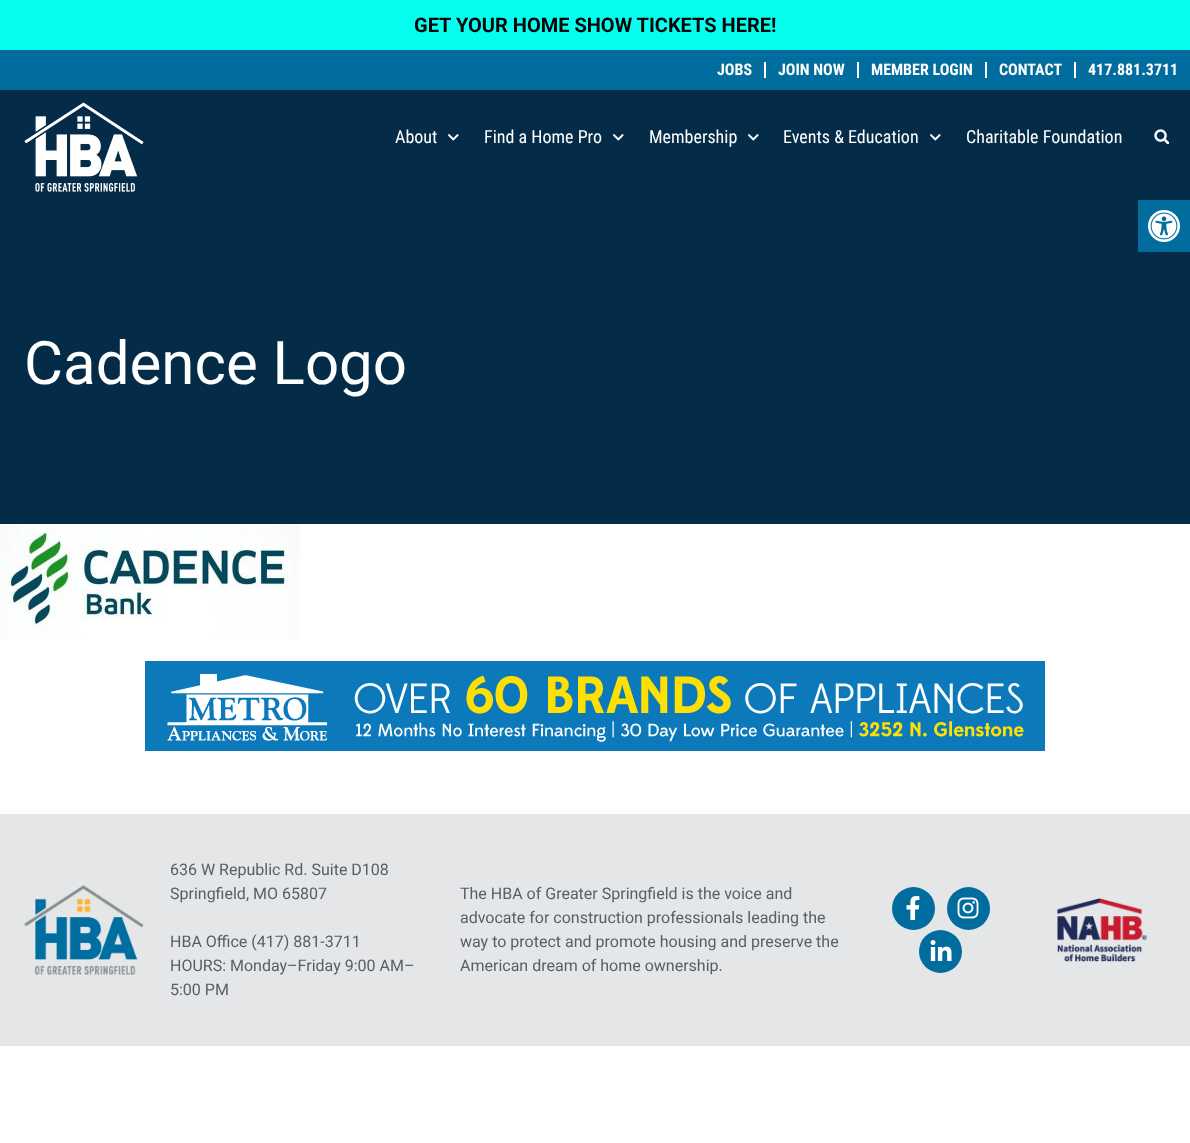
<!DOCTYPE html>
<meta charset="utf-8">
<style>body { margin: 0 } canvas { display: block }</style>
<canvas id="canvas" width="1190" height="1143"></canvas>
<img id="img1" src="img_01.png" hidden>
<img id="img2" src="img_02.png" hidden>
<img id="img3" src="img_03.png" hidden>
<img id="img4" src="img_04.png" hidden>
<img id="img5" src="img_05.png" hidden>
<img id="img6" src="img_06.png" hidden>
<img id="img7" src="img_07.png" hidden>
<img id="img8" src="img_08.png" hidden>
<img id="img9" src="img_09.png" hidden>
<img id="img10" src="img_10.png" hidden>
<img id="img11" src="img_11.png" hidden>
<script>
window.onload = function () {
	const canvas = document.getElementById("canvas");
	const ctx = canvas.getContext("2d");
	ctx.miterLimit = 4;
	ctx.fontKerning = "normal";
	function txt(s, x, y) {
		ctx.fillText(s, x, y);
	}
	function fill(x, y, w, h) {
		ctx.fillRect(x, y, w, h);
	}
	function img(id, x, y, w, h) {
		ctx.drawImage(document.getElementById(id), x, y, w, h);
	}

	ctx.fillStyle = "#FFFFFF";
	fill(0, 0, 1190, 1143);
	ctx.fillStyle = "#05FFEE";
	fill(0, 0, 1190, 50);
	ctx.fillStyle = "#006D9E";
	fill(0, 50, 1190, 40);
	ctx.fillStyle = "#FFFFFF";
	fill(764, 62, 2, 16);
	fill(857, 62, 2, 16);
	fill(985, 62, 2, 16);
	fill(1074, 62, 2, 16);
	ctx.fillStyle = "#042C48";
	fill(0, 90, 1190, 434);
	img("img1", 24, 102, 120, 90);
	img("img2", 448, 134, 11, 7);
	img("img2", 613, 134, 11, 7);
	img("img2", 748, 134, 11, 7);
	img("img2", 930, 134, 11, 7);
	img("img3", 1154, 129, 15, 15);
	ctx.fillStyle = "#006D9E";
	fill(1138, 200, 52, 52);
	img("img4", 1148, 210, 32, 32);
	img("img5", 0, 524, 300, 115);
	img("img6", 145, 661, 900, 90);
	ctx.fillStyle = "#E4E6E8";
	fill(0, 814, 1190, 232);
	img("img7", 24, 885, 120, 90);
	ctx.fillStyle = "#006D9E";
	ctx.beginPath();
	ctx.arc(913.5, 908.5, 21.5, 0, Math.PI * 2);
	ctx.fill();
	img("img8", 906, 896, 14, 24);
	ctx.beginPath();
	ctx.arc(968.5, 908.5, 21.5, 0, Math.PI * 2);
	ctx.fill();
	img("img9", 957, 897, 22, 22);
	ctx.beginPath();
	ctx.arc(940.5, 951.5, 21.5, 0, Math.PI * 2);
	ctx.fill();
	img("img10", 930, 940, 22, 21);
	img("img11", 1057, 898, 90, 64);
	ctx.font = "bold 20px Roboto";
	ctx.fillStyle = "#050505";
	txt("GET YOUR HOME SHOW TICKETS HERE!", 414, 32);
	ctx.font = "bold 16px Roboto Condensed";
	ctx.fillStyle = "#FFFFFF";
	txt("JOBS", 717, 75);
	txt("JOIN NOW", 778, 75);
	txt("MEMBER LOGIN", 871, 75);
	txt("CONTACT", 999, 75);
	txt("417.881.3711", 1088, 75);
	ctx.font = "18px Roboto Condensed";
	txt("About", 395, 143);
	txt("Find a Home Pro", 484, 143);
	txt("Membership", 649, 143);
	txt("Events & Education", 783, 143);
	txt("Charitable Foundation", 966, 143);
	ctx.font = "60px Roboto";
	txt("Cadence Logo", 24, 384);
	ctx.font = "16px Roboto";
	ctx.fillStyle = "#595E65";
	txt("636 W Republic Rd. Suite D108", 170, 875);
	txt("Springfield, MO 65807", 170, 899);
	txt("HBA Office (417) 881-3711", 170, 947);
	txt("HOURS: Monday–Friday 9:00 AM–", 170, 971);
	txt("5:00 PM", 170, 995);
	txt("The HBA of Greater Springfield is the voice and", 460, 899);
	txt("advocate for construction professionals leading the", 460, 923);
	txt("way to protect and promote housing and preserve the", 460, 947);
	txt("American dream of home ownership.", 460, 971);
};
</script>
